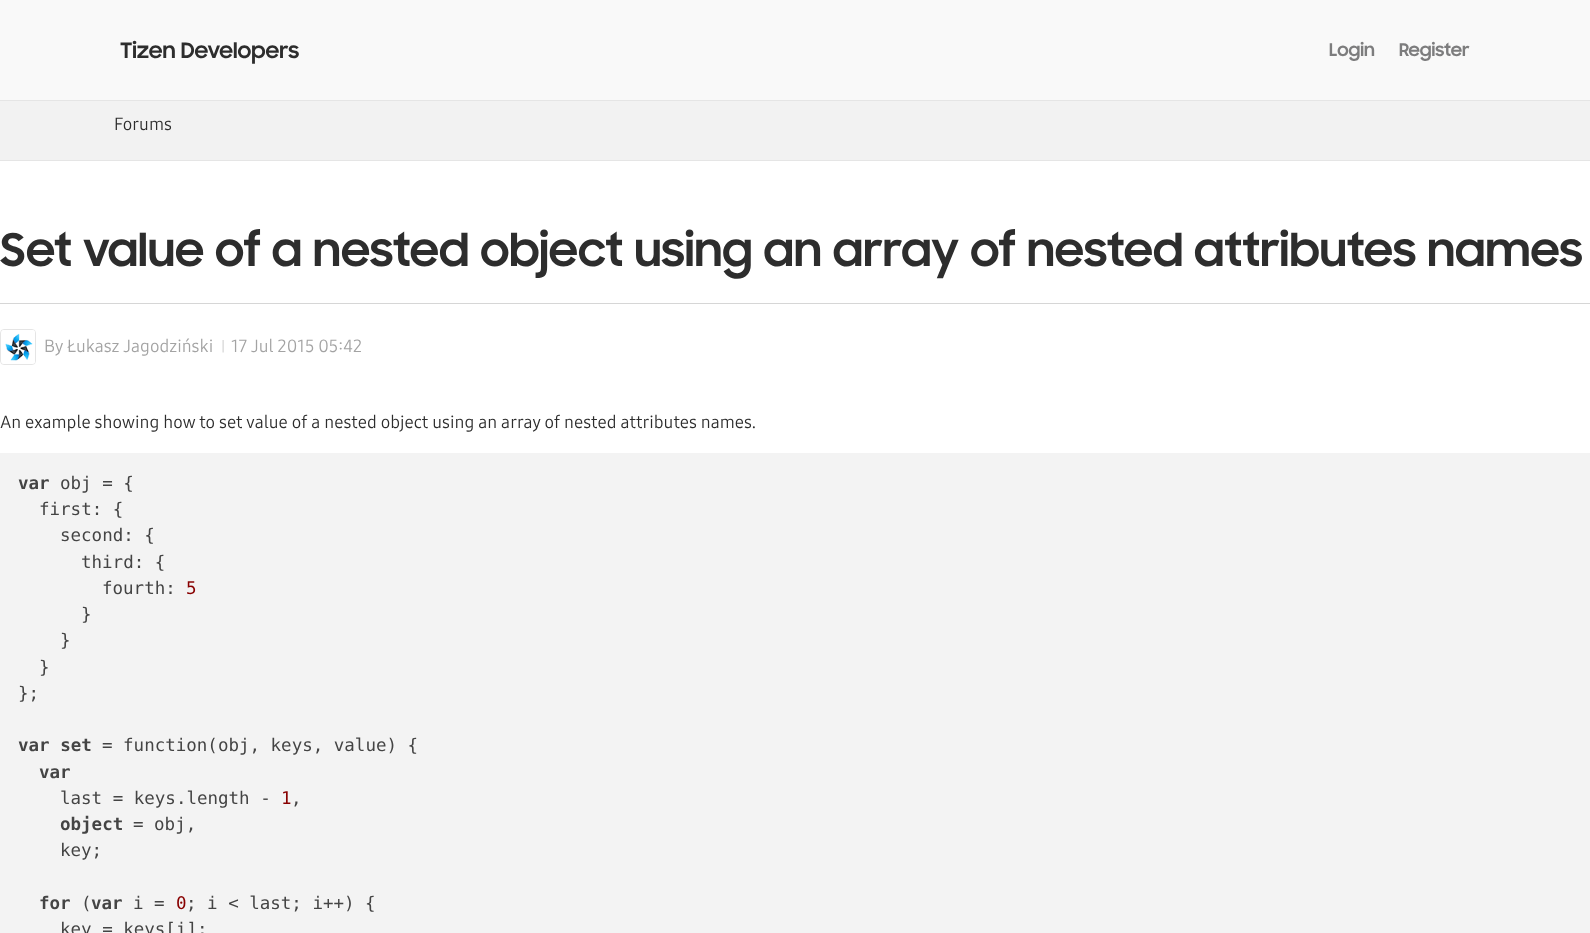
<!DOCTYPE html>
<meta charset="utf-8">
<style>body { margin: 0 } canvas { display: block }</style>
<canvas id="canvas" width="1590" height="933"></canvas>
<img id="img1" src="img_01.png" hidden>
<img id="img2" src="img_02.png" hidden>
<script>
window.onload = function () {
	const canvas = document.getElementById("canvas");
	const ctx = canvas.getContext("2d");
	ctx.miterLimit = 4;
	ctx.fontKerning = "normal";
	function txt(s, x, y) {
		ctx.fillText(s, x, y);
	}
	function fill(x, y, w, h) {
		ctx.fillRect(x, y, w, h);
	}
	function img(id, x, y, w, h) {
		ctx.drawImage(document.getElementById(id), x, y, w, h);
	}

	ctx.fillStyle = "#FFFFFF";
	fill(0, 0, 1590, 933);
	ctx.fillStyle = "#F9F9F9";
	fill(0, 0, 1590, 100);
	ctx.fillStyle = "#E5E5E5";
	fill(0, 100, 1590, 1);
	ctx.fillStyle = "#F2F2F2";
	fill(0, 101, 1590, 59);
	ctx.fillStyle = "#E5E5E5";
	fill(0, 160, 1590, 1);
	ctx.fillStyle = "#D6D6D6";
	fill(0, 303, 1590, 1);
	ctx.beginPath();
	ctx.roundRect(0.5, 329.5, 35, 35, 3.5);
	ctx.strokeStyle = "#E5E5E5";
	ctx.stroke();
	img("img1", 1, 330, 34, 34);
	img("img2", 222, 340, 2, 13);
	ctx.fillStyle = "#F3F3F3";
	fill(0, 453, 1590, 480);
	ctx.font = "bold 21.25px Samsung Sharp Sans";
	ctx.fillStyle = "#2D2D2D";
	txt("Tizen Developers", 120, 58);
	ctx.font = "bold 17.5px Samsung Sharp Sans";
	ctx.fillStyle = "#7D7D7E";
	txt("Login", 1329, 56);
	txt("Register", 1399, 56);
	ctx.font = "17.5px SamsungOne";
	ctx.fillStyle = "#2D2D2D";
	txt("Forums", 114, 130);
	ctx.font = "bold 45px Samsung Sharp Sans";
	txt("Set value of a nested object using an array of nested attributes names", 0, 266);
	ctx.font = "17.5px SamsungOne";
	ctx.fillStyle = "#A3A3A3";
	txt("By Łukasz Jagodziński", 44, 352);
	txt("17 Jul 2015 05:42", 231, 352);
	ctx.fillStyle = "#2D2D2D";
	txt("An example showing how to set value of a nested object using an array of nested attributes names.", 0, 428);
	ctx.font = "bold 17.5px DejaVu Sans Mono";
	ctx.fillStyle = "#444444";
	txt("var", 18, 489);
	ctx.font = "17.5px DejaVu Sans Mono";
	txt("obj = {", 60, 489);
	txt("first: {", 39, 515);
	txt("second: {", 60, 541);
	txt("third: {", 81, 568);
	txt("fourth:", 102, 594);
	ctx.fillStyle = "#880000";
	txt("5", 186, 594);
	ctx.fillStyle = "#444444";
	txt("}", 81, 620);
	txt("}", 60, 646);
	txt("}", 39, 673);
	txt("};", 18, 699);
	ctx.font = "bold 17.5px DejaVu Sans Mono";
	txt("var set", 18, 751);
	ctx.font = "17.5px DejaVu Sans Mono";
	txt("= function(obj, keys, value) {", 102, 751);
	ctx.font = "bold 17.5px DejaVu Sans Mono";
	txt("var", 39, 778);
	ctx.font = "17.5px DejaVu Sans Mono";
	txt("last = keys.length -", 60, 804);
	ctx.fillStyle = "#880000";
	txt("1", 281, 804);
	ctx.fillStyle = "#444444";
	txt(",", 291, 804);
	ctx.font = "bold 17.5px DejaVu Sans Mono";
	txt("object", 60, 830);
	ctx.font = "17.5px DejaVu Sans Mono";
	txt("= obj,", 133, 830);
	txt("key;", 60, 856);
	ctx.font = "bold 17.5px DejaVu Sans Mono";
	txt("for", 39, 909);
	ctx.font = "17.5px DejaVu Sans Mono";
	txt("(", 81, 909);
	ctx.font = "bold 17.5px DejaVu Sans Mono";
	txt("var", 91, 909);
	ctx.font = "17.5px DejaVu Sans Mono";
	txt("i =", 133, 909);
	ctx.fillStyle = "#880000";
	txt("0", 176, 909);
	ctx.fillStyle = "#444444";
	txt("; i < last; i++) {", 186, 909);
	txt("key = keys[i];", 60, 935);
};
</script>
